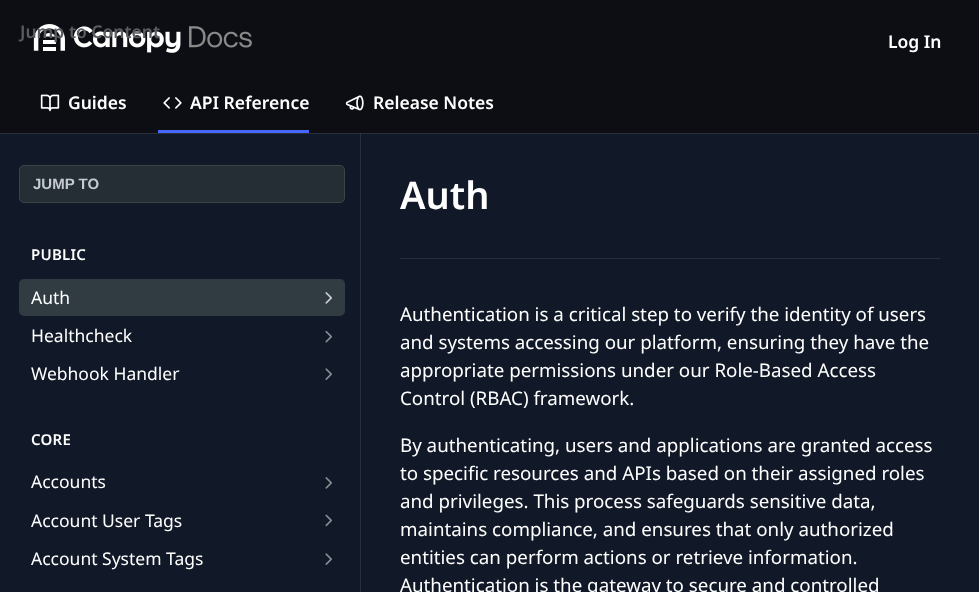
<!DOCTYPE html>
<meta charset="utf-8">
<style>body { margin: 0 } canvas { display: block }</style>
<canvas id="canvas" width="979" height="592"></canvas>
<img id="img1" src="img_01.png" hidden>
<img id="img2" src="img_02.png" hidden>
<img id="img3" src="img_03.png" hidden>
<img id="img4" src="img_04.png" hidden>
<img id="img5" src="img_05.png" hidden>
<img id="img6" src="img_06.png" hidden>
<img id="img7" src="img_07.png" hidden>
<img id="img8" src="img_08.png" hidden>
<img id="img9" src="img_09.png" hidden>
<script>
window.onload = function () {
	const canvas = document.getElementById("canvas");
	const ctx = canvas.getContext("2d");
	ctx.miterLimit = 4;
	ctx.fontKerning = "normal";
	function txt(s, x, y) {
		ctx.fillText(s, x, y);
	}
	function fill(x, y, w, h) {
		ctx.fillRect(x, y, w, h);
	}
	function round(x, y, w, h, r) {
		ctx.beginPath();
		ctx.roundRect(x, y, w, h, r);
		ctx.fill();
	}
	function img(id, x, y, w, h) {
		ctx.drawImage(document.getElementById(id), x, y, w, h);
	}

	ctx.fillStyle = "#111827";
	fill(0, 0, 979, 592);
	ctx.fillStyle = "#292F3D";
	fill(0, 133, 979, 1);
	ctx.fillStyle = "#0D0E14";
	fill(0, 0, 979, 133);
	img("img1", 33, 24, 219, 29);
	img("img2", 40, 94, 20, 18);
	img("img3", 163, 97, 19, 12);
	ctx.fillStyle = "#4867FF";
	fill(158, 130, 151, 3);
	img("img4", 345, 95, 19, 16);
	ctx.fillStyle = "#292F3D";
	fill(360, 133, 1, 459);
	ctx.fillStyle = "#3E4450";
	fill(360, 133, 1, 1);
	ctx.fillStyle = "#242E34";
	round(19, 165, 326, 38, 5);
	ctx.beginPath();
	ctx.roundRect(19.5, 165.5, 325, 37, 4.5);
	ctx.strokeStyle = "rgba(255, 255, 255, 0.1)";
	ctx.stroke();
	ctx.fillStyle = "#303B42";
	round(19, 279, 326, 37, 5);
	img("img5", 325, 292, 7, 12);
	img("img6", 325, 330, 7, 13);
	img("img7", 325, 368, 7, 12);
	img("img8", 325, 477, 7, 12);
	img("img9", 325, 514, 7, 13);
	img("img7", 325, 553, 7, 12);
	ctx.fillStyle = "#292F3D";
	fill(400, 258, 540, 1);
	ctx.font = "600 17.5px Noto Sans";
	ctx.fillStyle = "#5B5C60";
	txt("Jump to Content", 20, 38);
	ctx.fillStyle = "#FFFFFF";
	txt("Log In", 888, 48);
	txt("Guides", 68, 109);
	txt("API Reference", 190, 109);
	txt("Release Notes", 373, 109);
	ctx.font = "bold 15px Liberation Sans";
	ctx.fillStyle = "#C6CBD3";
	txt("JUMP TO", 33, 189);
	ctx.letterSpacing = "0.25px";
	ctx.font = "600 15px Noto Sans";
	ctx.fillStyle = "#FFFFFF";
	txt("PUBLIC", 31, 260);
	ctx.letterSpacing = "0px";
	ctx.font = "17.5px Noto Sans";
	txt("Auth", 31, 304);
	txt("Healthcheck", 31, 342);
	txt("Webhook Handler", 31, 380);
	ctx.letterSpacing = "0.25px";
	ctx.font = "600 15px Noto Sans";
	txt("CORE", 31, 445);
	ctx.letterSpacing = "0px";
	ctx.font = "17.5px Noto Sans";
	txt("Accounts", 31, 488);
	txt("Account User Tags", 31, 527);
	txt("Account System Tags", 31, 565);
	ctx.font = "600 38px Noto Sans";
	txt("Auth", 400, 209);
	ctx.font = "18.75px Noto Sans";
	txt("Authentication is a critical step to verify the identity of users", 400, 321);
	txt("and systems accessing our platform, ensuring they have the", 400, 349);
	txt("appropriate permissions under our Role-Based Access", 400, 377);
	txt("Control (RBAC) framework.", 400, 405);
	txt("By authenticating, users and applications are granted access", 400, 452);
	txt("to specific resources and APIs based on their assigned roles", 400, 480);
	txt("and privileges. This process safeguards sensitive data,", 400, 508);
	txt("maintains compliance, and ensures that only authorized", 400, 536);
	txt("entities can perform actions or retrieve information.", 400, 564);
	txt("Authentication is the gateway to secure and controlled", 400, 592);
};
</script>
